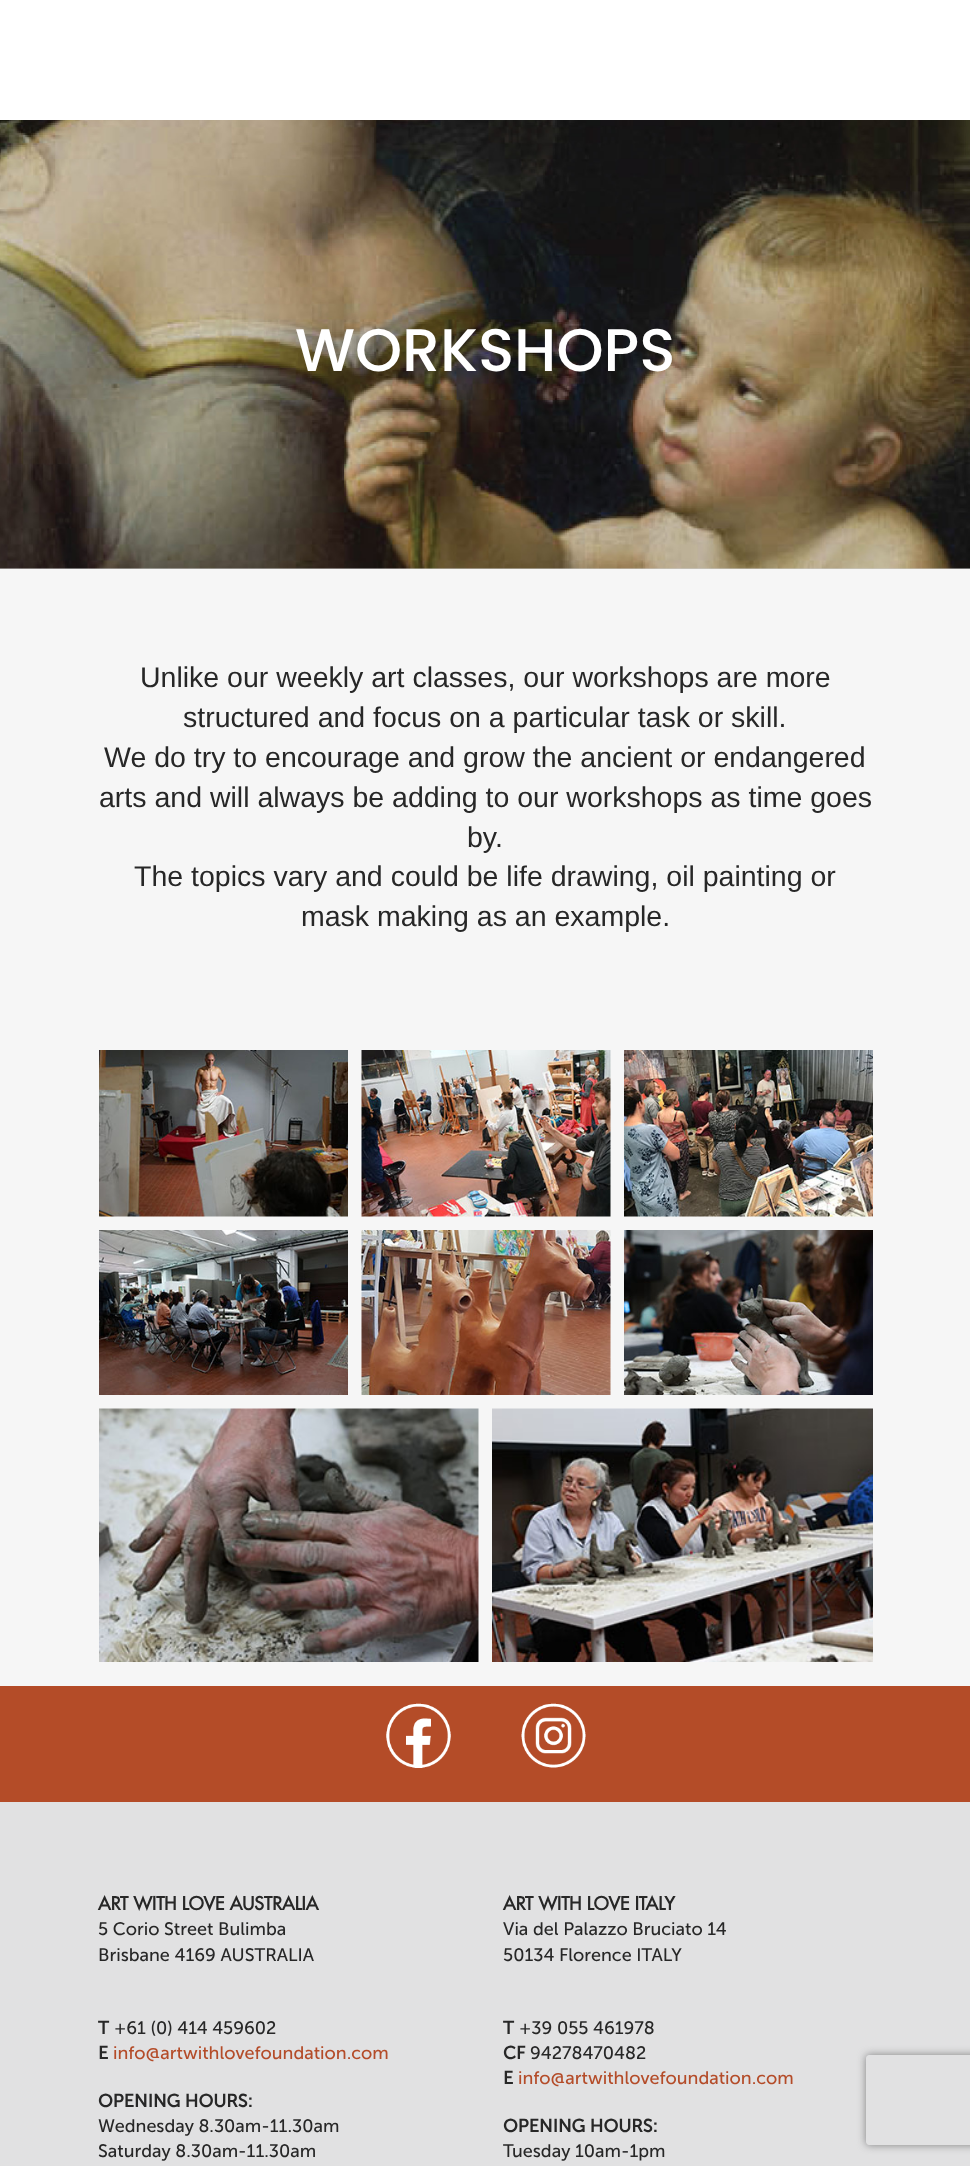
<!DOCTYPE html>
<meta charset="utf-8">
<style>body { margin: 0 } canvas { display: block }</style>
<canvas id="canvas" width="970" height="2166"></canvas>
<img id="img1" src="img_01.png" hidden>
<img id="img2" src="img_02.png" hidden>
<img id="img3" src="img_03.png" hidden>
<img id="img4" src="img_04.png" hidden>
<img id="img5" src="img_05.png" hidden>
<img id="img6" src="img_06.png" hidden>
<img id="img7" src="img_07.png" hidden>
<img id="img8" src="img_08.png" hidden>
<img id="img9" src="img_09.png" hidden>
<img id="img10" src="img_10.png" hidden>
<img id="img11" src="img_11.png" hidden>
<script>
window.onload = function () {
	const canvas = document.getElementById("canvas");
	const ctx = canvas.getContext("2d");
	ctx.miterLimit = 4;
	ctx.fontKerning = "normal";
	function txt(s, x, y) {
		ctx.fillText(s, x, y);
	}
	function fill(x, y, w, h) {
		ctx.fillRect(x, y, w, h);
	}
	function img(id, x, y, w, h) {
		ctx.drawImage(document.getElementById(id), x, y, w, h);
	}

	ctx.fillStyle = "#F6F6F6";
	fill(0, 0, 970, 2166);
	ctx.fillStyle = "#FFFFFF";
	fill(0, 0, 970, 120);
	ctx.fillStyle = "#CCCCCC";
	fill(0, 568, 970, 1);
	img("img1", 0, 120, 970, 449);
	img("img2", 99, 1050, 249, 167);
	img("img3", 361, 1050, 250, 167);
	img("img4", 624, 1050, 249, 167);
	img("img5", 99, 1230, 249, 165);
	img("img6", 361, 1230, 250, 165);
	img("img7", 624, 1230, 249, 165);
	img("img8", 99, 1408, 380, 254);
	img("img9", 492, 1408, 381, 254);
	ctx.fillStyle = "#B44C28";
	fill(0, 1686, 970, 116);
	img("img10", 386, 1703, 65, 65);
	img("img11", 521, 1703, 65, 65);
	ctx.fillStyle = "#E1E1E2";
	fill(0, 1802, 970, 364);
	ctx.save();
	ctx.beginPath();
	ctx.moveTo(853, 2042);
	ctx.lineTo(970, 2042);
	ctx.lineTo(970, 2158);
	ctx.lineTo(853, 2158);
	ctx.closePath();
	ctx.moveTo(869, 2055);
	ctx.lineTo(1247, 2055);
	ctx.bezierCurveTo(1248.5, 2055, 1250, 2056.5, 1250, 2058);
	ctx.lineTo(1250, 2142);
	ctx.bezierCurveTo(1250, 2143.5, 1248.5, 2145, 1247, 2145);
	ctx.lineTo(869, 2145);
	ctx.bezierCurveTo(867.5, 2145, 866, 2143.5, 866, 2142);
	ctx.lineTo(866, 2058);
	ctx.bezierCurveTo(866, 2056.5, 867.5, 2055, 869, 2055);
	ctx.closePath();
	ctx.clip("evenodd");
	ctx.fillStyle = "#808080";
	ctx.filter = "blur(4px)";
	ctx.beginPath();
	ctx.roundRect(866, 2055, 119, 90, 3);
	ctx.fill();
	ctx.filter = "none";
	ctx.restore();
	ctx.font = "500 60px Poppins";
	ctx.fillStyle = "#FFFFFF";
	txt("WORKSHOPS", 295, 371);
	ctx.font = "28.5px Liberation Sans";
	ctx.fillStyle = "#272727";
	txt("Unlike our weekly art classes, our workshops are more", 140, 687);
	txt("structured and focus on a particular task or skill.", 183, 727);
	txt("We do try to encourage and grow the ancient or endangered", 104, 767);
	txt("arts and will always be adding to our workshops as time goes", 99, 807);
	txt("by.", 467, 847);
	txt("The topics vary and could be life drawing, oil painting or", 134, 886);
	txt("mask making as an example.", 301, 926);
	ctx.font = "bold 18px Futura";
	txt("ART WITH LOVE AUSTRALIA", 98, 1910);
	ctx.font = "18px Museo Sans";
	txt("5 Corio Street Bulimba", 98, 1935);
	txt("Brisbane 4169 AUSTRALIA", 98, 1961);
	ctx.font = "bold 18px Museo Sans";
	txt("T", 98, 2034);
	ctx.font = "18px Museo Sans";
	txt("+61 (0) 414 459602", 114, 2034);
	ctx.font = "bold 18px Museo Sans";
	txt("E", 98, 2059);
	ctx.font = "18px Museo Sans";
	ctx.fillStyle = "#B44C29";
	txt("info@artwithlovefoundation.com", 113, 2059);
	ctx.font = "bold 18px Museo Sans";
	ctx.fillStyle = "#272727";
	txt("OPENING HOURS:", 98, 2107);
	ctx.font = "18px Museo Sans";
	txt("Wednesday 8.30am-11.30am", 98, 2132);
	txt("Saturday 8.30am-11.30am", 98, 2157);
	ctx.font = "bold 18px Futura";
	txt("ART WITH LOVE ITALY", 503, 1910);
	ctx.font = "18px Museo Sans";
	txt("Via del Palazzo Bruciato 14", 503, 1935);
	txt("50134 Florence ITALY", 503, 1961);
	ctx.font = "bold 18px Museo Sans";
	txt("T", 503, 2034);
	ctx.font = "18px Museo Sans";
	txt("+39 055 461978", 519, 2034);
	ctx.font = "bold 18px Museo Sans";
	txt("CF", 503, 2059);
	ctx.font = "18px Museo Sans";
	txt("94278470482", 530, 2059);
	ctx.font = "bold 18px Museo Sans";
	txt("E", 503, 2084);
	ctx.font = "18px Museo Sans";
	ctx.fillStyle = "#B44C29";
	txt("info@artwithlovefoundation.com", 518, 2084);
	ctx.font = "bold 18px Museo Sans";
	ctx.fillStyle = "#272727";
	txt("OPENING HOURS:", 503, 2132);
	ctx.font = "18px Museo Sans";
	txt("Tuesday 10am-1pm", 503, 2157);
};
</script>
